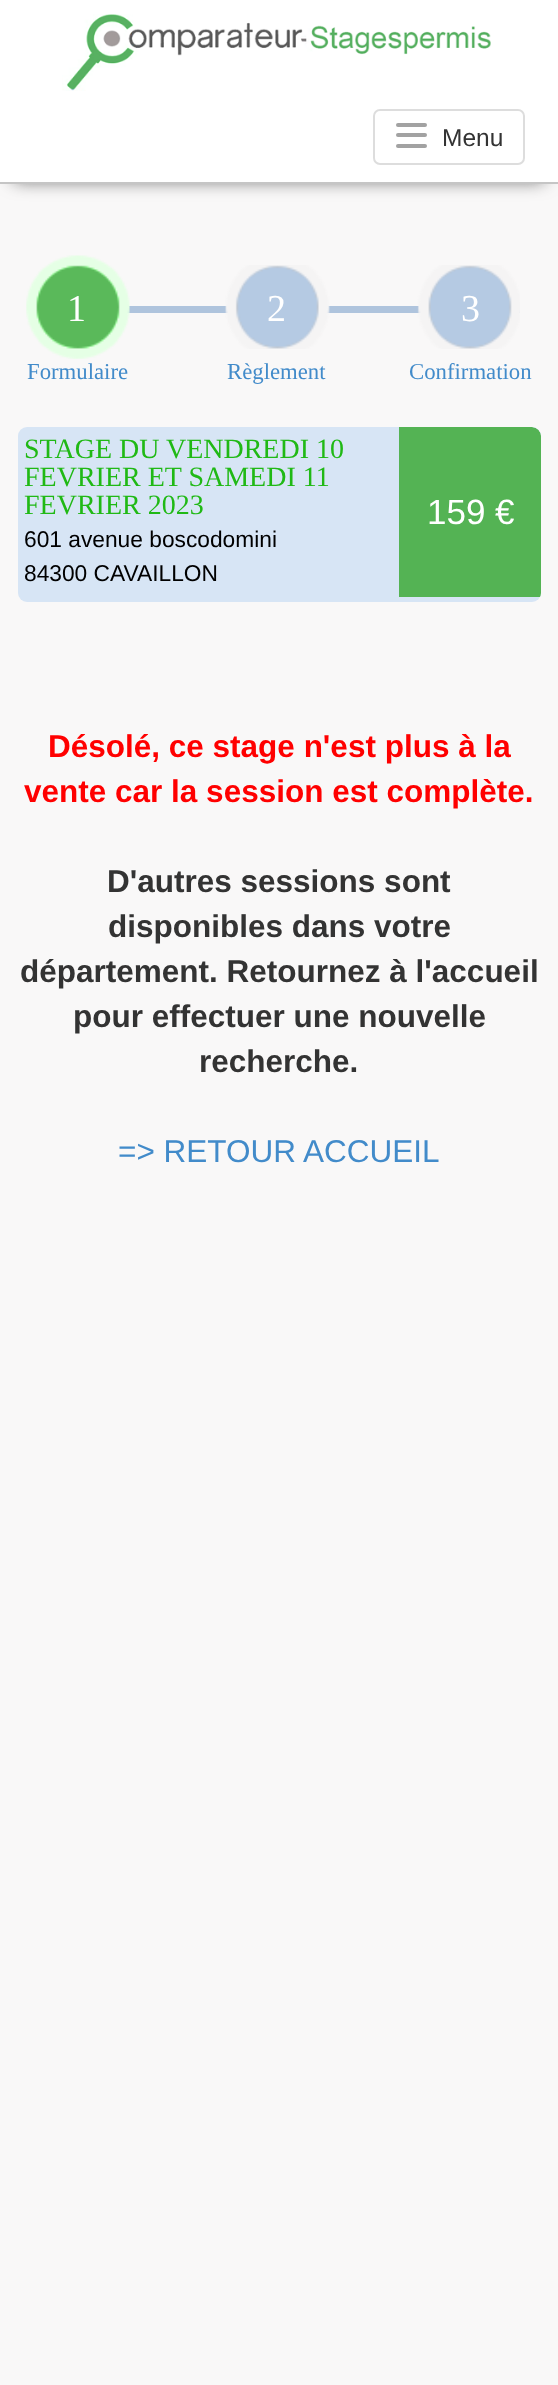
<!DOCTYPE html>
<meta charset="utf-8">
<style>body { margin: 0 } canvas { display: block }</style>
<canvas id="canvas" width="558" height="2385"></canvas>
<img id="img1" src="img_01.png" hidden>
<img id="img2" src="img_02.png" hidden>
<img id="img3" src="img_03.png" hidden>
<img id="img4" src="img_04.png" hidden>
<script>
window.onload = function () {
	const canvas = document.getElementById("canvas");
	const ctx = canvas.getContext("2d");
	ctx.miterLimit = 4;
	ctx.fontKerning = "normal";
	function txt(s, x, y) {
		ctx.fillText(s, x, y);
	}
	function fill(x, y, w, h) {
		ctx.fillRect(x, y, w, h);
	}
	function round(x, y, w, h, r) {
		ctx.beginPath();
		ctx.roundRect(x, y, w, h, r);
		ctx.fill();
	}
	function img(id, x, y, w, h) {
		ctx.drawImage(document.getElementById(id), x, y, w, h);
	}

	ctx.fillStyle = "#F9F8F8";
	fill(0, 0, 558, 2385);
	ctx.fillStyle = "#555555";
	ctx.filter = "blur(9px)";
	ctx.beginPath();
	ctx.rect(14, 25, 530, 155);
	ctx.fill();
	ctx.filter = "none";
	ctx.fillStyle = "#FFFFFF";
	fill(0, 0, 558, 182);
	ctx.fillStyle = "#C5C5C5";
	fill(0, 182, 558, 2);
	img("img1", 62, 14, 429, 77);
	ctx.beginPath();
	ctx.roundRect(374, 110, 150, 54, 6);
	ctx.strokeStyle = "#DDDDDD";
	ctx.lineWidth = 2;
	ctx.stroke();
	ctx.fillStyle = "#A2A2A2";
	round(396, 123, 31, 4, 2);
	round(396, 133, 31, 4, 2);
	round(396, 144, 31, 4, 2);
	ctx.fillStyle = "#AFC4DD";
	fill(127, 306, 393, 7);
	img("img2", 26, 255, 104, 104);
	img("img3", 225, 265, 105, 84);
	img("img4", 417, 265, 103, 84);
	ctx.fillStyle = "#D7E5F5";
	round(18, 427, 523, 175, 9);
	ctx.save();
	ctx.beginPath();
	ctx.roundRect(18, 427, 523, 175, 9);
	ctx.clip();
	ctx.fillStyle = "#54B354";
	ctx.beginPath();
	ctx.roundRect(399, 427, 142, 170, [0, 9, 0, 0]);
	ctx.fill();
	ctx.restore();
	ctx.font = "24.5px Liberation Sans";
	ctx.fillStyle = "#333333";
	txt("Menu", 442, 146);
	ctx.font = "38px Liberation Serif";
	ctx.fillStyle = "#FFFFFF";
	txt("1", 67, 321);
	ctx.font = "22.75px Liberation Serif";
	ctx.fillStyle = "#428BCA";
	txt("Formulaire", 27, 379);
	ctx.font = "38px Liberation Serif";
	ctx.fillStyle = "#FFFFFF";
	txt("2", 267, 321);
	ctx.font = "22.75px Liberation Serif";
	ctx.fillStyle = "#428BCA";
	txt("Règlement", 227, 379);
	ctx.font = "38px Liberation Serif";
	ctx.fillStyle = "#FFFFFF";
	txt("3", 461, 321);
	ctx.font = "22.75px Liberation Serif";
	ctx.fillStyle = "#428BCA";
	txt("Confirmation", 409, 379);
	ctx.font = "28px Liberation Serif";
	ctx.fillStyle = "#20B915";
	txt("STAGE DU VENDREDI 10", 24, 458);
	txt("FEVRIER ET SAMEDI 11", 24, 486);
	txt("FEVRIER 2023", 24, 514);
	ctx.font = "22.75px Liberation Sans";
	ctx.fillStyle = "#000000";
	txt("601 avenue boscodomini", 24, 547);
	txt("84300 CAVAILLON", 24, 581);
	ctx.font = "35px Liberation Sans";
	ctx.fillStyle = "#FFFFFF";
	txt("159 €", 427, 524);
	ctx.font = "bold 31.5px Liberation Sans";
	ctx.fillStyle = "#FF0000";
	txt("Désolé, ce stage n'est plus à la", 48, 757);
	txt("vente car la session est complète.", 24, 802);
	ctx.fillStyle = "#333333";
	txt("D'autres sessions sont", 107, 892);
	txt("disponibles dans votre", 108, 937);
	txt("département. Retournez à l'accueil", 20, 982);
	txt("pour effectuer une nouvelle", 73, 1027);
	txt("recherche.", 199, 1072);
	ctx.font = "31.5px Liberation Sans";
	ctx.fillStyle = "#428BCA";
	txt("=> RETOUR ACCUEIL", 118, 1162);
};
</script>
